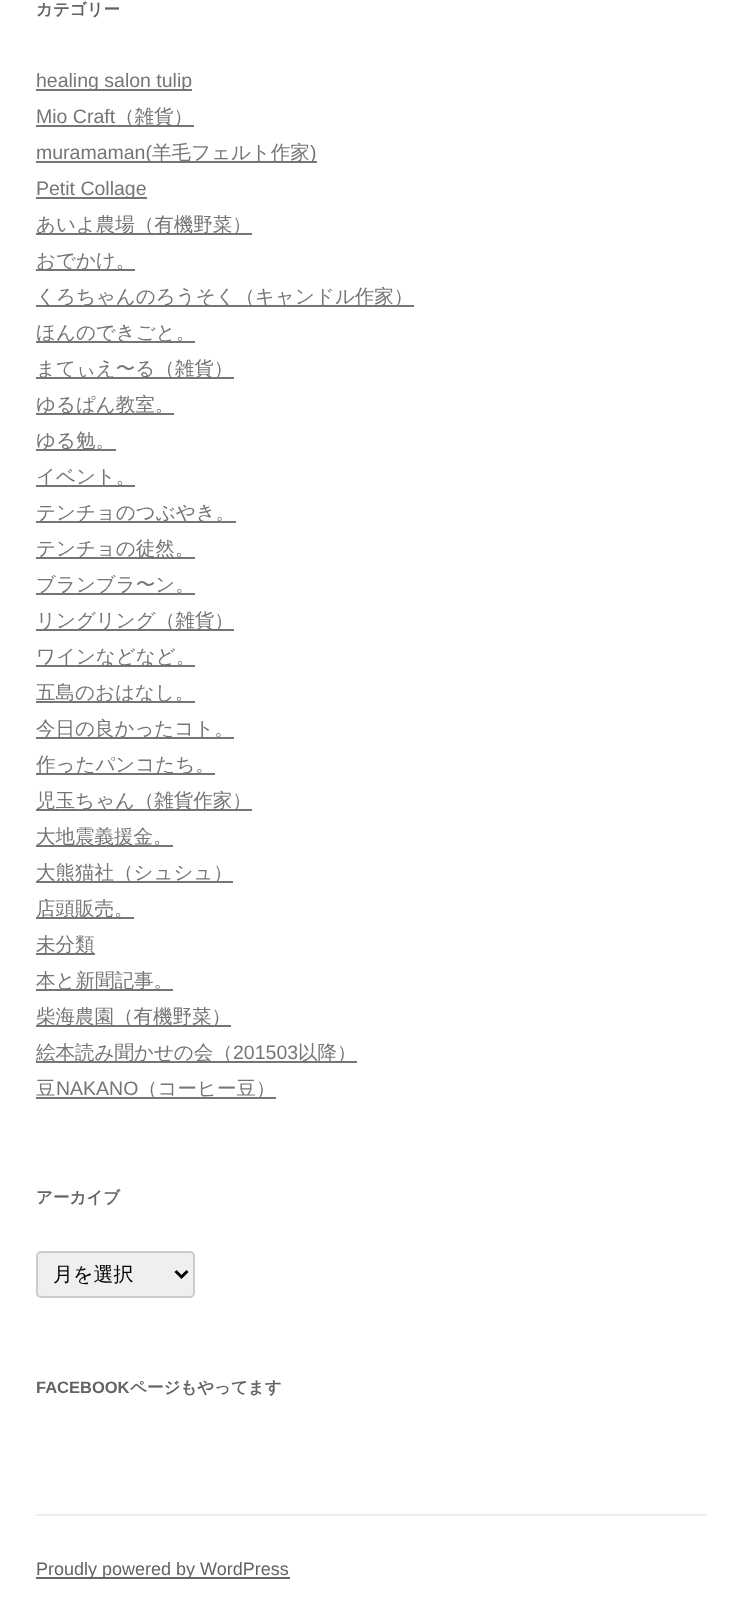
<!DOCTYPE html>
<meta charset="utf-8">
<style>body { margin: 0 } canvas { display: block }</style>
<canvas id="canvas" width="742" height="1622"></canvas>
<script>
window.onload = function () {
	const canvas = document.getElementById("canvas");
	const ctx = canvas.getContext("2d");
	ctx.miterLimit = 4;
	ctx.fontKerning = "normal";
	function txt(s, x, y) {
		ctx.fillText(s, x, y);
	}
	function fill(x, y, w, h) {
		ctx.fillRect(x, y, w, h);
	}

	ctx.fillStyle = "#FFFFFF";
	fill(0, 0, 742, 1622);
	ctx.fillStyle = "#757575";
	fill(36, 89, 156, 2);
	fill(36, 125, 158, 2);
	fill(36, 161, 281, 2);
	fill(36, 197, 111, 2);
	fill(36, 233, 216, 2);
	fill(36, 269, 99, 2);
	fill(36, 305, 378, 2);
	fill(36, 341, 159, 2);
	fill(36, 377, 198, 2);
	fill(36, 413, 138, 2);
	fill(36, 449, 80, 2);
	fill(36, 485, 99, 2);
	fill(36, 521, 200, 2);
	fill(36, 557, 159, 2);
	fill(36, 593, 159, 2);
	fill(36, 629, 198, 2);
	fill(36, 665, 159, 2);
	fill(36, 701, 159, 2);
	fill(36, 737, 198, 2);
	fill(36, 773, 179, 2);
	fill(36, 809, 216, 2);
	fill(36, 845, 137, 2);
	fill(36, 881, 197, 2);
	fill(36, 917, 98, 2);
	fill(36, 953, 59, 2);
	fill(36, 989, 137, 2);
	fill(36, 1025, 195, 2);
	fill(36, 1061, 321, 2);
	fill(36, 1097, 240, 2);
	ctx.fillStyle = "#EFEFEF";
	ctx.beginPath();
	ctx.roundRect(37, 1252, 157, 45, 4);
	ctx.fill();
	ctx.strokeStyle = "#CCCCCC";
	ctx.lineWidth = 2;
	ctx.stroke();
	ctx.beginPath();
	ctx.moveTo(175.5, 1271);
	ctx.lineTo(181.5, 1277);
	ctx.lineTo(187.5, 1271);
	ctx.strokeStyle = "#000000";
	ctx.lineWidth = 3;
	ctx.stroke();
	ctx.fillStyle = "#EDEDED";
	fill(36, 1514, 671, 2);
	ctx.fillStyle = "#686868";
	fill(36, 1577, 254, 2);
	ctx.font = "bold 16.5px WenQuanYi Zen Hei";
	ctx.fillStyle = "#636363";
	txt("カテゴリー", 36, 15);
	ctx.font = "19.5px Liberation Sans";
	ctx.fillStyle = "#757575";
	txt("healing salon tulip", 36, 87);
	txt("Mio Craft", 36, 123);
	ctx.font = "500 19.5px WenQuanYi Zen Hei";
	txt("（雑貨）", 115, 123);
	ctx.font = "19.5px Liberation Sans";
	txt("muramaman(", 36, 159);
	ctx.font = "500 19.5px WenQuanYi Zen Hei";
	txt("羊毛フェルト作家", 152, 159);
	ctx.font = "19.5px Liberation Sans";
	txt(")", 310, 159);
	txt("Petit Collage", 36, 195);
	ctx.font = "500 19.5px WenQuanYi Zen Hei";
	txt("あいよ農場（有機野菜）", 36, 231);
	txt("おでかけ。", 36, 267);
	txt("くろちゃんのろうそく（キャンドル作家）", 36, 303);
	txt("ほんのできごと。", 36, 339);
	txt("まてぃえ〜る（雑貨）", 36, 375);
	txt("ゆるぱん教室。", 36, 411);
	txt("ゆる勉。", 36, 447);
	txt("イベント。", 36, 483);
	txt("テンチョのつぶやき。", 36, 519);
	txt("テンチョの徒然。", 36, 555);
	txt("ブランブラ〜ン。", 36, 591);
	txt("リングリング（雑貨）", 36, 627);
	txt("ワインなどなど。", 36, 663);
	txt("五島のおはなし。", 36, 699);
	txt("今日の良かったコト。", 36, 735);
	txt("作ったパンコたち。", 36, 771);
	txt("児玉ちゃん（雑貨作家）", 36, 807);
	txt("大地震義援金。", 36, 843);
	txt("大熊猫社（シュシュ）", 36, 879);
	txt("店頭販売。", 36, 915);
	txt("未分類", 36, 951);
	txt("本と新聞記事。", 36, 987);
	txt("柴海農園（有機野菜）", 36, 1023);
	txt("絵本読み聞かせの会（", 36, 1059);
	ctx.font = "19.5px Liberation Sans";
	txt("201503", 233, 1059);
	ctx.font = "500 19.5px WenQuanYi Zen Hei";
	txt("以降）", 298, 1059);
	txt("豆", 36, 1095);
	ctx.font = "19.5px Liberation Sans";
	txt("NAKANO", 56, 1095);
	ctx.font = "500 19.5px WenQuanYi Zen Hei";
	txt("（コーヒー豆）", 138, 1095);
	ctx.font = "bold 16.5px WenQuanYi Zen Hei";
	ctx.fillStyle = "#636363";
	txt("アーカイブ", 36, 1203);
	ctx.font = "500 20px WenQuanYi Zen Hei";
	ctx.fillStyle = "#000000";
	txt("月を選択", 53, 1281);
	ctx.font = "bold 16.5px Liberation Sans";
	ctx.fillStyle = "#636363";
	txt("FACEBOOK", 36, 1393);
	ctx.font = "bold 16.5px WenQuanYi Zen Hei";
	txt("ページもやってます", 130, 1393);
	ctx.font = "18px Liberation Sans";
	txt("Proudly powered by WordPress", 36, 1575);
};
</script>
